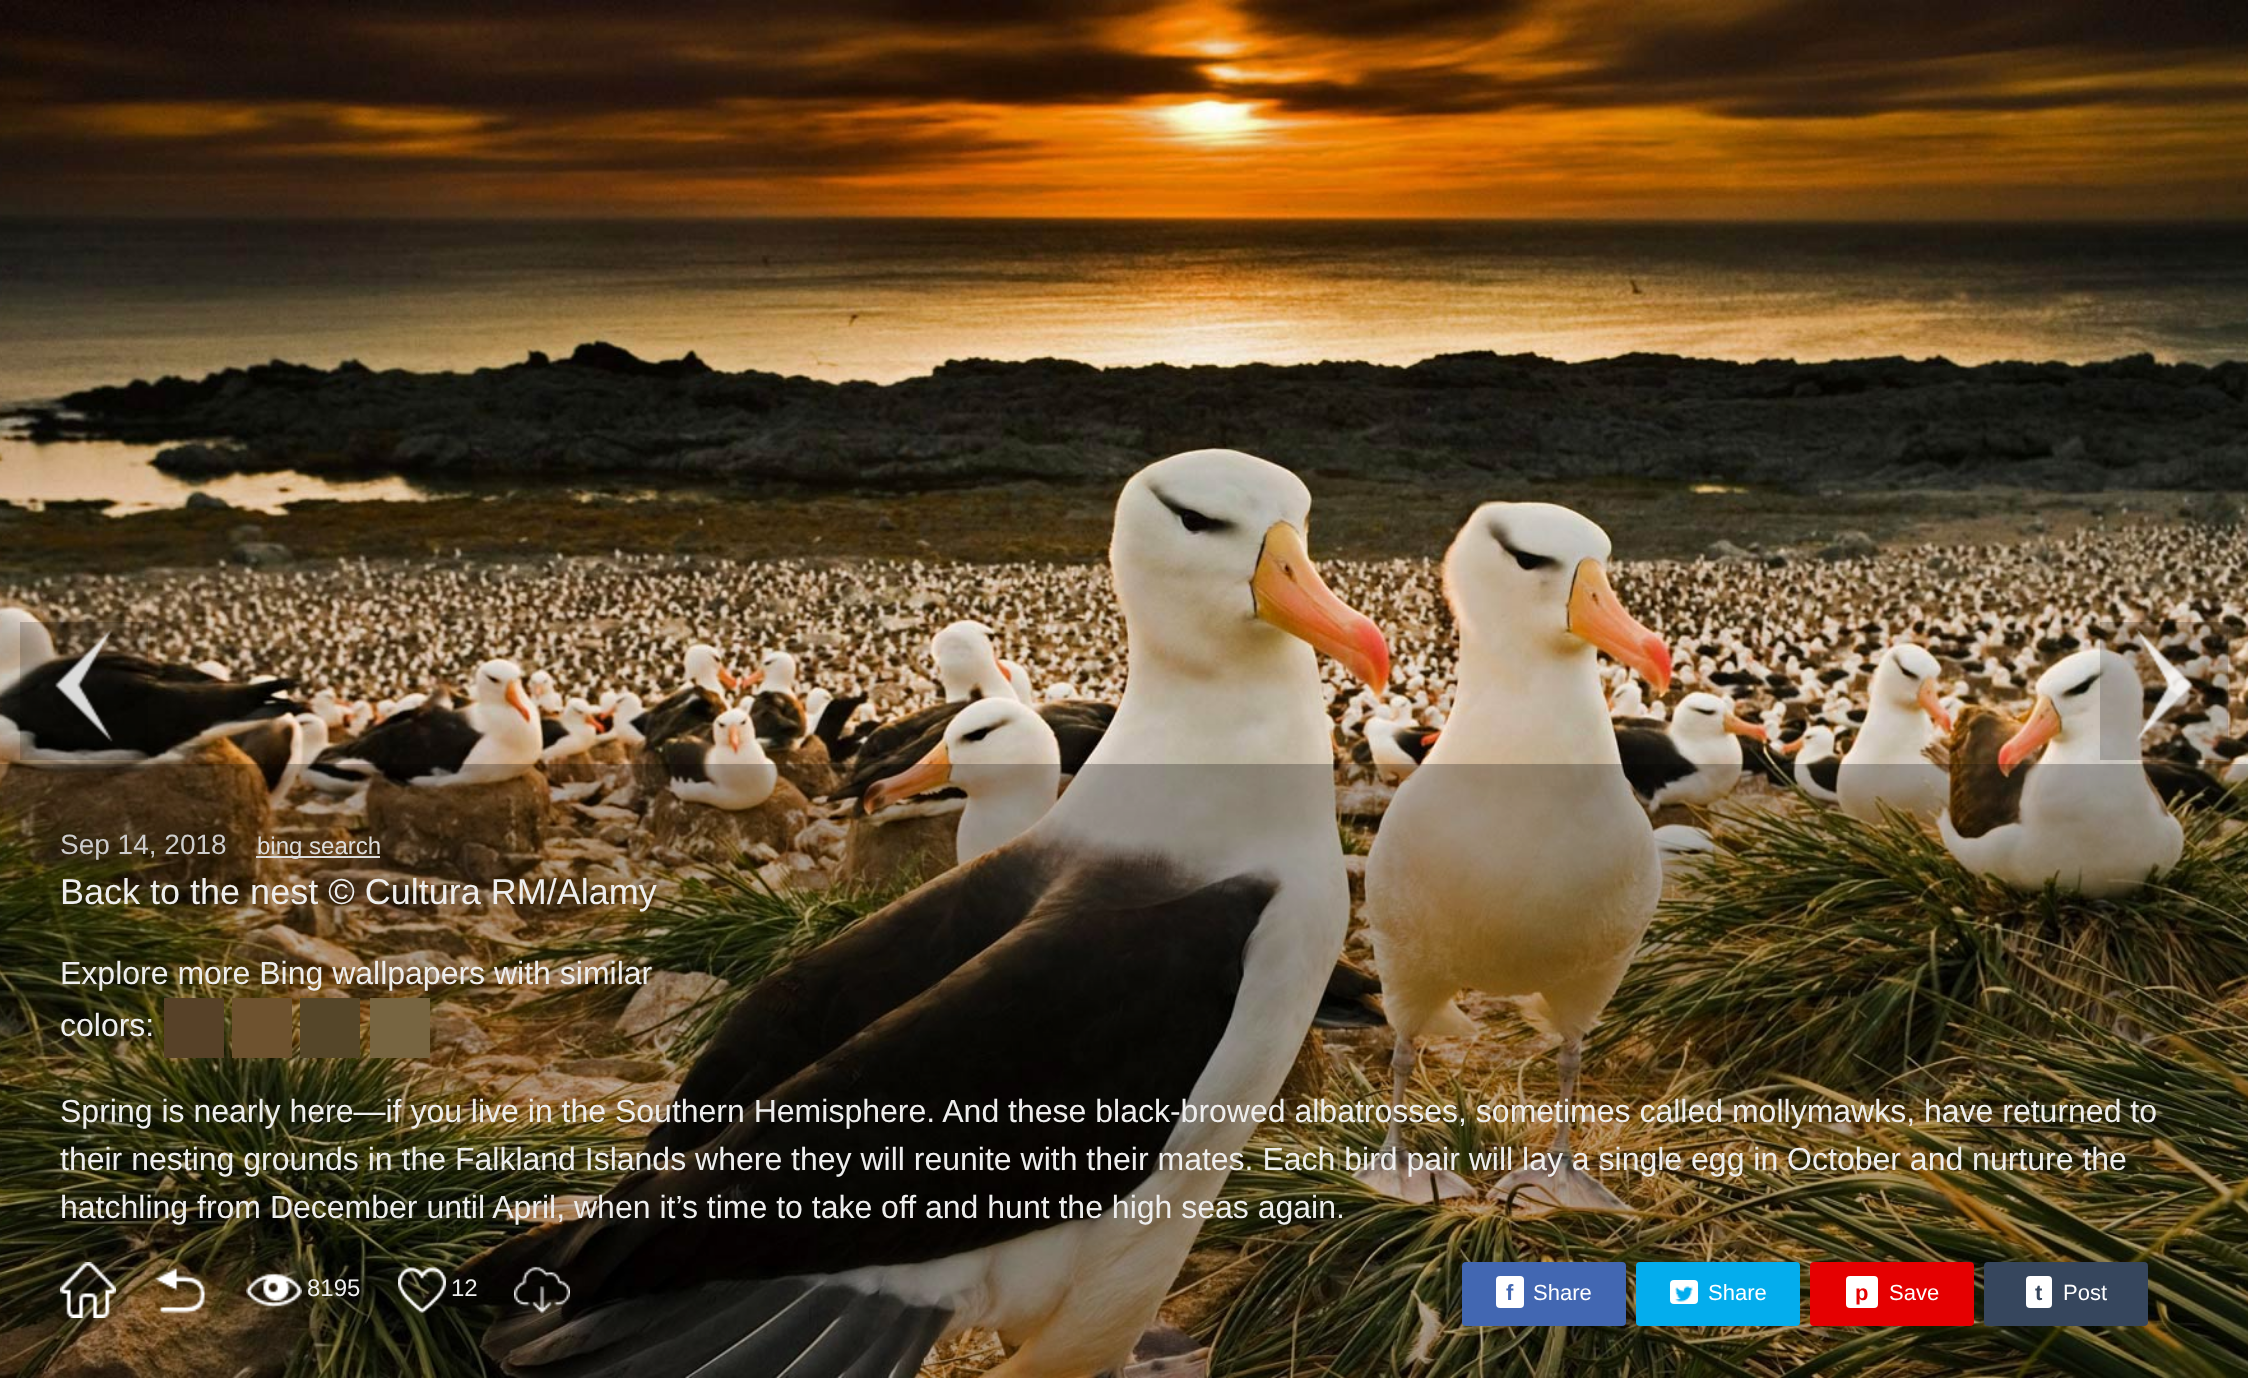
<!DOCTYPE html>
<meta charset="utf-8">
<style>body { margin: 0 } canvas { display: block }</style>
<canvas id="canvas" width="2248" height="1378"></canvas>
<img id="img1" src="img_03.png" hidden>
<img id="img2" src="img_01.png" hidden>
<img id="img3" src="img_02.png" hidden>
<img id="img4" src="img_04.png" hidden>
<img id="img5" src="img_05.png" hidden>
<img id="img6" src="img_06.png" hidden>
<img id="img7" src="img_07.png" hidden>
<img id="img8" src="img_08.png" hidden>
<img id="img9" src="img_09.png" hidden>
<script>
window.onload = function () {
	const canvas = document.getElementById("canvas");
	const ctx = canvas.getContext("2d");
	ctx.miterLimit = 4;
	ctx.fontKerning = "normal";
	function txt(s, x, y) {
		ctx.fillText(s, x, y);
	}
	function fill(x, y, w, h) {
		ctx.fillRect(x, y, w, h);
	}
	function round(x, y, w, h, r) {
		ctx.beginPath();
		ctx.roundRect(x, y, w, h, r);
		ctx.fill();
	}
	function img(id, x, y, w, h) {
		ctx.drawImage(document.getElementById(id), x, y, w, h);
	}

	ctx.fillStyle = "#FFFFFF";
	fill(0, 0, 2248, 1378);
	img("img1", 0, 0, 2248, 1378);
	ctx.fillStyle = "rgba(0, 0, 0, 0.2)";
	fill(20, 622, 128, 138);
	img("img2", 55, 628, 58, 114);
	fill(2100, 622, 128, 138);
	img("img3", 2135, 628, 59, 114);
	ctx.fillStyle = "rgba(0, 0, 0, 0.25)";
	fill(0, 764, 2248, 614);
	ctx.fillStyle = "#DDDDDD";
	fill(256, 856, 124, 2);
	ctx.fillStyle = "#574128";
	fill(164, 998, 60, 60);
	ctx.fillStyle = "#6E522F";
	fill(232, 998, 60, 60);
	ctx.fillStyle = "#554629";
	fill(300, 998, 60, 60);
	ctx.fillStyle = "#776541";
	fill(370, 998, 60, 60);
	img("img4", 60, 1262, 56, 56);
	img("img5", 155, 1267, 51, 47);
	img("img6", 246, 1272, 56, 36);
	img("img7", 398, 1267, 48, 46);
	img("img8", 514, 1266, 56, 48);
	ctx.fillStyle = "#4267B2";
	round(1462, 1262, 164, 64, 4);
	ctx.fillStyle = "#FFFFFF";
	round(1496, 1276, 28, 32, 4);
	ctx.fillStyle = "#04ADED";
	round(1636, 1262, 164, 64, 4);
	ctx.fillStyle = "#FFFFFF";
	round(1670, 1280, 28, 24, 4);
	img("img9", 1675, 1286, 18, 16);
	ctx.fillStyle = "#E50001";
	round(1810, 1262, 164, 64, 4);
	ctx.fillStyle = "#FFFFFF";
	round(1846, 1276, 32, 32, 4);
	ctx.fillStyle = "#36465D";
	round(1984, 1262, 164, 64, 4);
	ctx.fillStyle = "#FFFFFF";
	round(2026, 1276, 26, 32, 4);
	ctx.font = "28px Liberation Sans";
	ctx.fillStyle = "#CCCCCC";
	txt("Sep 14, 2018", 60, 854);
	ctx.font = "24px Liberation Sans";
	ctx.fillStyle = "#DDDDDD";
	txt("bing search", 257, 854);
	ctx.font = "36px Liberation Sans";
	ctx.fillStyle = "#EEEEEE";
	txt("Back to the nest © Cultura RM/Alamy", 60, 904);
	ctx.font = "32px Liberation Sans";
	txt("Explore more Bing wallpapers with similar", 60, 984);
	txt("colors:", 60, 1036);
	txt("Spring is nearly here—if you live in the Southern Hemisphere. And these black-browed albatrosses, sometimes called mollymawks, have returned to", 60, 1122);
	txt("their nesting grounds in the Falkland Islands where they will reunite with their mates. Each bird pair will lay a single egg in October and nurture the", 60, 1170);
	txt("hatchling from December until April, when it’s time to take off and hunt the high seas again.", 60, 1218);
	ctx.font = "24px Liberation Sans";
	txt("8195", 307, 1296);
	txt("12", 451, 1296);
	ctx.font = "bold 22px Liberation Sans";
	ctx.fillStyle = "#4267B2";
	txt("f", 1506, 1300);
	ctx.font = "22px Liberation Sans";
	ctx.fillStyle = "#FFFFFF";
	txt("Share", 1533, 1300);
	txt("Share", 1708, 1300);
	ctx.font = "bold 22px Liberation Sans";
	ctx.fillStyle = "#E50001";
	txt("p", 1855, 1300);
	ctx.font = "22px Liberation Sans";
	ctx.fillStyle = "#FFFFFF";
	txt("Save", 1889, 1300);
	ctx.font = "bold 22px Liberation Sans";
	ctx.fillStyle = "#36465D";
	txt("t", 2035, 1300);
	ctx.font = "22px Liberation Sans";
	ctx.fillStyle = "#FFFFFF";
	txt("Post", 2063, 1300);
};
</script>
